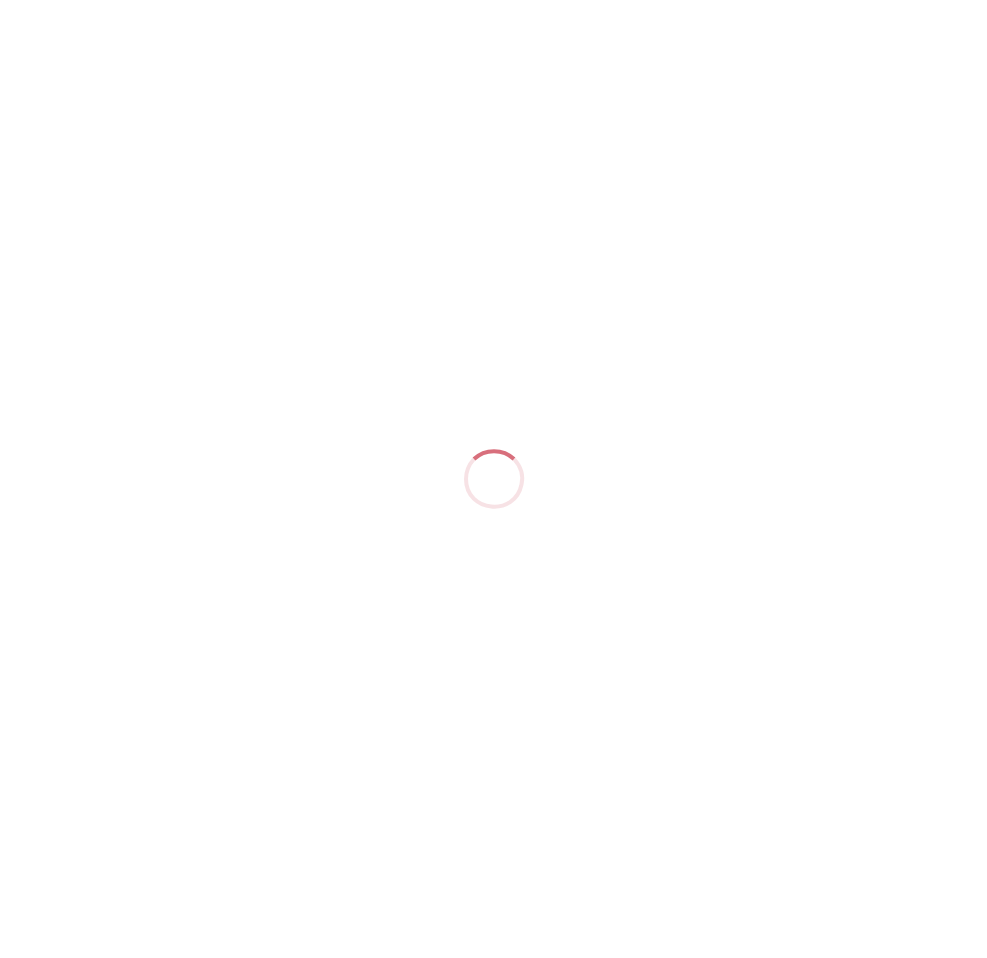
<!DOCTYPE html>
<meta charset="utf-8">
<style>body { margin: 0 } canvas { display: block }</style>
<canvas id="canvas" width="987" height="958"></canvas>
<script>
window.onload = function () {
	const canvas = document.getElementById("canvas");
	const ctx = canvas.getContext("2d");
	ctx.miterLimit = 4;
	ctx.fontKerning = "normal";
	function fill(x, y, w, h) {
		ctx.fillRect(x, y, w, h);
	}

	ctx.fillStyle = "#FFFFFF";
	fill(0, 0, 987, 958);
	ctx.beginPath();
	ctx.moveTo(474, 459);
	ctx.bezierCurveTo(485, 448.5, 503, 448.5, 514, 459);
	ctx.strokeStyle = "#D86F7C";
	ctx.lineWidth = 4;
	ctx.stroke();
	ctx.beginPath();
	ctx.moveTo(514, 459);
	ctx.bezierCurveTo(520.5, 466, 523.5, 475.5, 521.5, 484.5);
	ctx.bezierCurveTo(515, 517, 466, 512.5, 466, 479);
	ctx.bezierCurveTo(466, 471.5, 469, 464.5, 474, 459);
	ctx.strokeStyle = "rgba(216, 111, 124, 0.2)";
	ctx.stroke();
};
</script>
